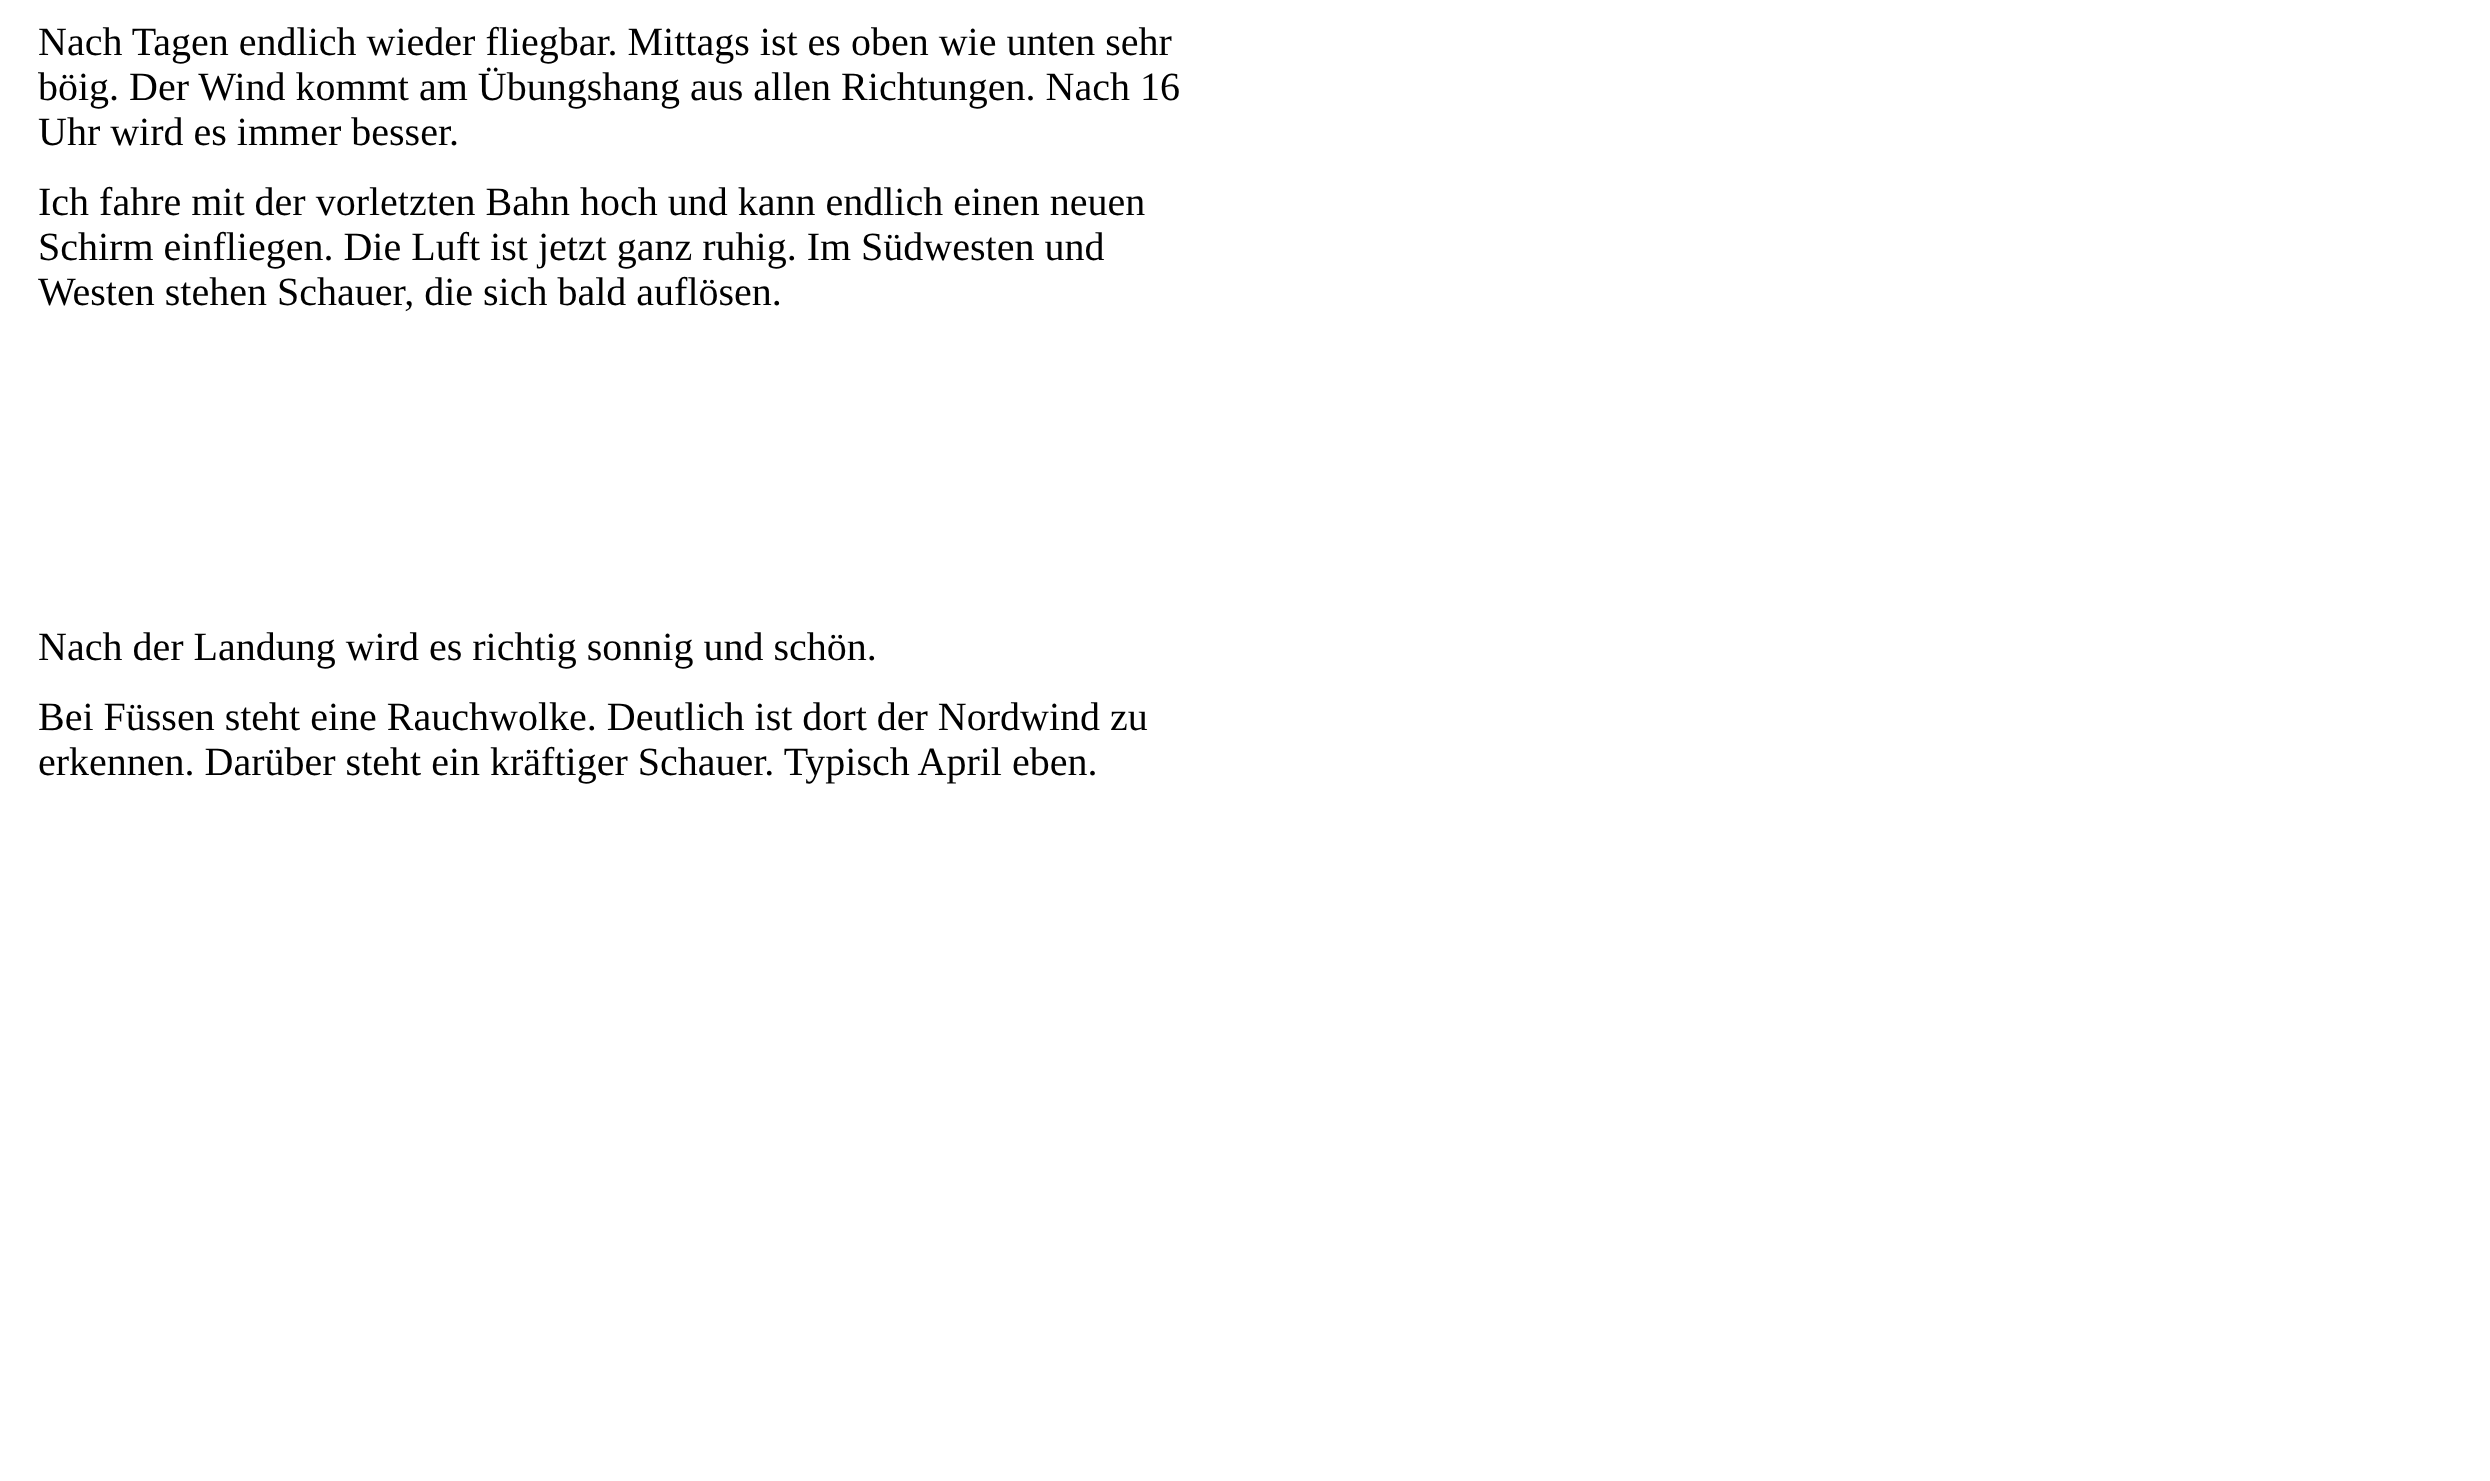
<!DOCTYPE html>
<meta charset="utf-8">
<style>body { margin: 0 } canvas { display: block }</style>
<canvas id="canvas" width="2490" height="1481"></canvas>
<script>
window.onload = function () {
	const canvas = document.getElementById("canvas");
	const ctx = canvas.getContext("2d");
	ctx.miterLimit = 4;
	ctx.fontKerning = "normal";
	function txt(s, x, y) {
		ctx.fillText(s, x, y);
	}
	function fill(x, y, w, h) {
		ctx.fillRect(x, y, w, h);
	}

	ctx.fillStyle = "#FFFFFF";
	fill(0, 0, 2490, 1481);
	ctx.font = "40px Liberation Serif";
	ctx.fillStyle = "#000000";
	txt("Nach Tagen endlich wieder fliegbar. Mittags ist es oben wie unten sehr", 38, 55);
	txt("böig. Der Wind kommt am Übungshang aus allen Richtungen. Nach 16", 38, 100);
	txt("Uhr wird es immer besser.", 38, 145);
	txt("Ich fahre mit der vorletzten Bahn hoch und kann endlich einen neuen", 38, 215);
	txt("Schirm einfliegen. Die Luft ist jetzt ganz ruhig. Im Südwesten und", 38, 260);
	txt("Westen stehen Schauer, die sich bald auflösen.", 38, 305);
	txt("Nach der Landung wird es richtig sonnig und schön.", 38, 660);
	txt("Bei Füssen steht eine Rauchwolke. Deutlich ist dort der Nordwind zu", 38, 730);
	txt("erkennen. Darüber steht ein kräftiger Schauer. Typisch April eben.", 38, 775);
};
</script>
